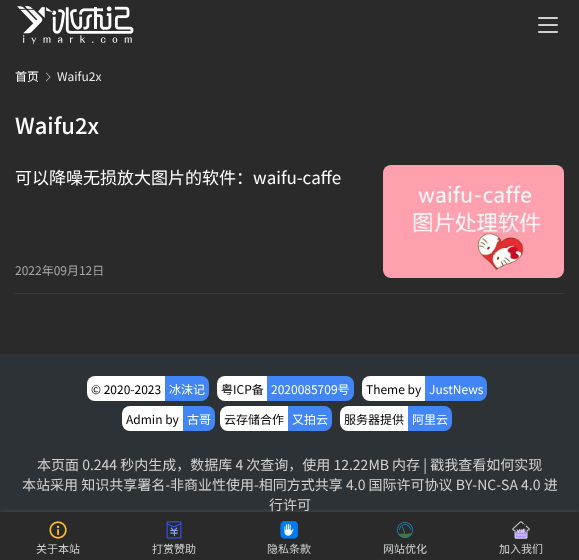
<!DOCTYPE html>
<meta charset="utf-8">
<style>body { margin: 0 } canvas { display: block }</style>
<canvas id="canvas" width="579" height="560"></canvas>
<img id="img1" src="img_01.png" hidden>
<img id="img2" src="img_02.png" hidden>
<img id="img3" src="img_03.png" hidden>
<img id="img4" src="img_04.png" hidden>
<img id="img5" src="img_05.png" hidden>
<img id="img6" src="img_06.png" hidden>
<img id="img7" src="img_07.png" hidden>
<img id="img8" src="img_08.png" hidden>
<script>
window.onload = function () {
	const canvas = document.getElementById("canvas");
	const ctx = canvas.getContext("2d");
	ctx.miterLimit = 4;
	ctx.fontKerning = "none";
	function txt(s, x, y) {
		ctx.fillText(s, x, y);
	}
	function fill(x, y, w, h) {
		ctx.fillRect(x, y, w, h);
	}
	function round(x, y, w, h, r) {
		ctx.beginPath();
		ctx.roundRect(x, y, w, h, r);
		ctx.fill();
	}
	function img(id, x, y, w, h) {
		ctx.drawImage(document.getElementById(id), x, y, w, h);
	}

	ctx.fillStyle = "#2A2A2A";
	fill(0, 0, 579, 560);
	img("img1", 17, 6, 117, 39);
	ctx.fillStyle = "#D0D0D0";
	round(538, 17, 20, 2, 1);
	round(538, 24, 20, 2, 1);
	round(538, 31, 20, 2, 1);
	img("img2", 46, 72, 5, 10);
	ctx.fillStyle = "#393939";
	fill(15, 293, 549, 1);
	img("img3", 383, 165, 181, 113);
	ctx.fillStyle = "#2D3236";
	fill(0, 354, 579, 158);
	ctx.fillStyle = "#FFFFFF";
	ctx.beginPath();
	ctx.roundRect(87, 376, 78, 25, [8, 0, 0, 8]);
	ctx.fill();
	ctx.fillStyle = "#4285F4";
	ctx.beginPath();
	ctx.roundRect(165, 376, 44, 25, [0, 8, 8, 0]);
	ctx.fill();
	ctx.fillStyle = "#FFFFFF";
	ctx.beginPath();
	ctx.roundRect(217, 376, 50, 25, [8, 0, 0, 8]);
	ctx.fill();
	ctx.fillStyle = "#4285F4";
	ctx.beginPath();
	ctx.roundRect(267, 376, 87, 25, [0, 8, 8, 0]);
	ctx.fill();
	ctx.fillStyle = "#FFFFFF";
	ctx.beginPath();
	ctx.roundRect(362, 376, 63, 25, [8, 0, 0, 8]);
	ctx.fill();
	ctx.fillStyle = "#4285F4";
	ctx.beginPath();
	ctx.roundRect(425, 376, 62, 25, [0, 8, 8, 0]);
	ctx.fill();
	ctx.fillStyle = "#FFFFFF";
	ctx.beginPath();
	ctx.roundRect(122, 406, 61, 25, [8, 0, 0, 8]);
	ctx.fill();
	ctx.fillStyle = "#4285F4";
	ctx.beginPath();
	ctx.roundRect(183, 406, 32, 25, [0, 8, 8, 0]);
	ctx.fill();
	ctx.fillStyle = "#FFFFFF";
	ctx.beginPath();
	ctx.roundRect(220, 406, 68, 25, [8, 0, 0, 8]);
	ctx.fill();
	ctx.fillStyle = "#4285F4";
	ctx.beginPath();
	ctx.roundRect(288, 406, 44, 25, [0, 8, 8, 0]);
	ctx.fill();
	ctx.fillStyle = "#FFFFFF";
	ctx.beginPath();
	ctx.roundRect(340, 406, 68, 25, [8, 0, 0, 8]);
	ctx.fill();
	ctx.fillStyle = "#4285F4";
	ctx.beginPath();
	ctx.roundRect(408, 406, 44, 25, [0, 8, 8, 0]);
	ctx.fill();
	ctx.fillStyle = "rgba(250, 250, 250, 0.06)";
	ctx.filter = "blur(1.5px)";
	ctx.beginPath();
	ctx.rect(0, 510, 579, 48);
	ctx.fill();
	ctx.filter = "none";
	ctx.fillStyle = "#2A2A2A";
	fill(0, 512, 579, 47);
	img("img4", 49, 521, 18, 18);
	img("img5", 166, 521, 16, 18);
	img("img6", 280, 521, 18, 18);
	img("img7", 397, 522, 16, 16);
	img("img8", 512, 521, 18, 18);
	ctx.font = "12px Noto Sans CJK SC";
	ctx.fillStyle = "#FFFFFF";
	txt("首页", 15, 81);
	ctx.fillStyle = "#EAEAEA";
	txt("Waifu2x", 57, 81);
	ctx.font = "500 22px Noto Sans CJK SC";
	ctx.fillStyle = "#FFFFFF";
	txt("Waifu2x", 15, 134);
	ctx.font = "17px Noto Sans CJK SC";
	txt("可以降噪无损放大图片的软件：waifu-caffe", 15, 184);
	ctx.font = "12px Noto Sans CJK SC";
	ctx.fillStyle = "#A7A7A7";
	txt("2022年09月12日", 15, 275);
	ctx.fillStyle = "#000000";
	txt("© 2020-2023", 91, 394);
	ctx.fillStyle = "#FFFFFF";
	txt("冰沫记", 169, 394);
	ctx.fillStyle = "#000000";
	txt("粤ICP备", 221, 394);
	ctx.fillStyle = "#FFFFFF";
	txt("2020085709号", 271, 394);
	ctx.fillStyle = "#000000";
	txt("Theme by", 366, 394);
	ctx.fillStyle = "#FFFFFF";
	txt("JustNews", 429, 394);
	ctx.fillStyle = "#000000";
	txt("Admin by", 126, 424);
	ctx.fillStyle = "#FFFFFF";
	txt("古哥", 187, 424);
	ctx.fillStyle = "#000000";
	txt("云存储合作", 224, 424);
	ctx.fillStyle = "#FFFFFF";
	txt("又拍云", 292, 424);
	ctx.fillStyle = "#000000";
	txt("服务器提供", 344, 424);
	ctx.fillStyle = "#FFFFFF";
	txt("阿里云", 412, 424);
	ctx.font = "14px Noto Sans CJK SC";
	ctx.fillStyle = "#D1D2D3";
	txt("本页面 0.244 秒内生成，数据库 4 次查询，使用 12.22MB 内存 | 戳我查看如何实现", 37, 470);
	txt("本站采用 知识共享署名-非商业性使用-相同方式共享 4.0 国际许可协议 BY-NC-SA 4.0 进", 22, 490);
	txt("行许可", 269, 510);
	ctx.font = "11px Noto Sans CJK SC";
	txt("关于本站", 36, 553);
	txt("打赏赞助", 152, 553);
	txt("隐私条款", 267, 553);
	txt("网站优化", 383, 553);
	txt("加入我们", 499, 553);
};
</script>
